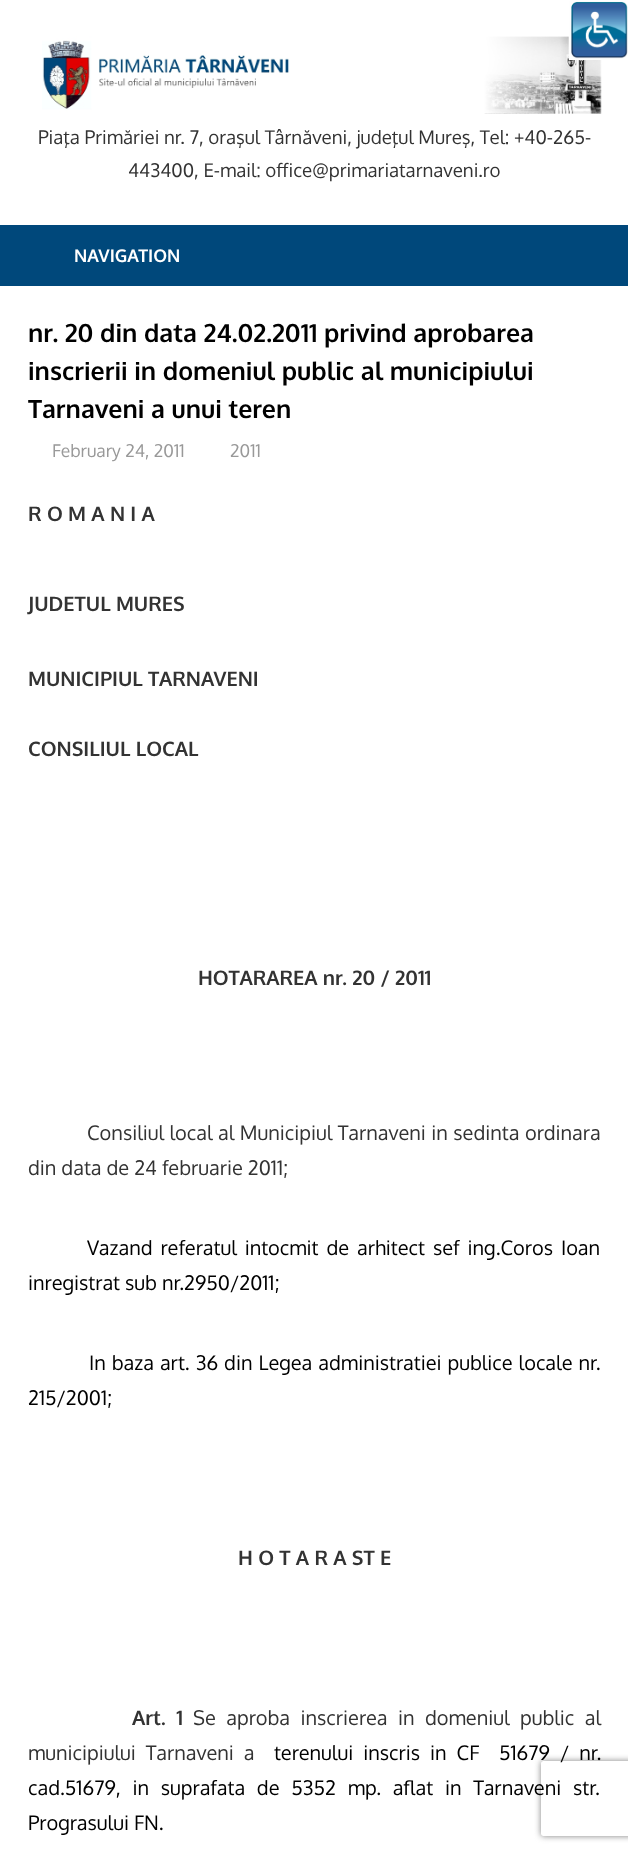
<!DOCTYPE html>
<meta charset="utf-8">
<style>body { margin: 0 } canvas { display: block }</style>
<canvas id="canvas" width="628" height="1853"></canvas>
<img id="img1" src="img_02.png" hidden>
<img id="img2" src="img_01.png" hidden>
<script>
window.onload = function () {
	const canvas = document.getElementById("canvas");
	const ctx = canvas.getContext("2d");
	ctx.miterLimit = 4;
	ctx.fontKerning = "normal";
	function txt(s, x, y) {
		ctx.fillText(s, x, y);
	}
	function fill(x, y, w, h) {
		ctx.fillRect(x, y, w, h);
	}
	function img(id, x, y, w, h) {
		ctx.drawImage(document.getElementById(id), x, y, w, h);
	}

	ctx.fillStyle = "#FFFFFF";
	fill(0, 0, 628, 1853);
	img("img1", 42, 36, 560, 78);
	fill(569, 36, 33, 24);
	img("img2", 568, 1, 60, 59);
	ctx.fillStyle = "#00487B";
	fill(0, 225, 628, 61);
	ctx.save();
	ctx.beginPath();
	ctx.moveTo(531, 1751);
	ctx.lineTo(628, 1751);
	ctx.lineTo(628, 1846);
	ctx.lineTo(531, 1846);
	ctx.closePath();
	ctx.moveTo(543.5, 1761);
	ctx.lineTo(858.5, 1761);
	ctx.bezierCurveTo(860, 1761, 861, 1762, 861, 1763.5);
	ctx.lineTo(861, 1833.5);
	ctx.bezierCurveTo(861, 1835, 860, 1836, 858.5, 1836);
	ctx.lineTo(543.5, 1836);
	ctx.bezierCurveTo(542, 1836, 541, 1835, 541, 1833.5);
	ctx.lineTo(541, 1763.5);
	ctx.bezierCurveTo(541, 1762, 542, 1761, 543.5, 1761);
	ctx.closePath();
	ctx.clip("evenodd");
	ctx.fillStyle = "#808080";
	ctx.filter = "blur(3px)";
	ctx.beginPath();
	ctx.roundRect(541, 1761, 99, 75, 2.5);
	ctx.fill();
	ctx.filter = "none";
	ctx.restore();
	ctx.font = "18.75px Oxygen";
	ctx.fillStyle = "#333333";
	txt("Piaţa Primăriei nr. 7, oraşul Târnăveni, judeţul Mureş, Tel: +40-265-", 38, 144);
	txt("443400, E-mail: office@primariatarnaveni.ro", 128, 177);
	ctx.font = "bold 17.5px Oxygen";
	ctx.fillStyle = "#FFFFFF";
	txt("NAVIGATION", 74, 262);
	ctx.font = "bold 25px Oxygen";
	ctx.fillStyle = "#000000";
	txt("nr. 20 din data 24.02.2011 privind aprobarea", 28, 342);
	txt("inscrierii in domeniul public al municipiului", 28, 380);
	txt("Tarnaveni a unui teren", 28, 418);
	ctx.font = "17.5px Oxygen";
	ctx.fillStyle = "#999999";
	txt("February 24, 2011", 52, 457);
	txt("2011", 230, 457);
	ctx.font = "bold 20px Oxygen";
	ctx.fillStyle = "#333333";
	txt("R O M A N I A", 28, 521);
	txt("JUDETUL MURES", 28, 611);
	txt("MUNICIPIUL TARNAVENI", 28, 686);
	txt("CONSILIUL LOCAL", 28, 756);
	txt("HOTARAREA nr. 20 / 2011", 198, 985);
	ctx.wordSpacing = "0.5px";
	ctx.font = "20px Oxygen";
	txt("Consiliul local al Municipiul Tarnaveni in sedinta ordinara", 87, 1140);
	ctx.wordSpacing = "0px";
	txt("din data de 24 februarie 2011;", 28, 1175);
	ctx.wordSpacing = "3px";
	ctx.fillStyle = "#000000";
	txt("Vazand referatul intocmit de", 87, 1255);
	txt("arhitect sef ing.Coros Ioan", 357, 1255);
	ctx.wordSpacing = "0px";
	txt("inregistrat sub nr.2950/2011;", 28, 1290);
	ctx.wordSpacing = "1px";
	txt("In baza art. 36 din Legea administratiei publice locale nr.", 89, 1370);
	ctx.wordSpacing = "0px";
	txt("215/2001;", 28, 1405);
	ctx.font = "bold 20px Oxygen";
	ctx.fillStyle = "#333333";
	txt("H O T A R A ST E", 238, 1565);
	ctx.wordSpacing = "5.5px";
	txt("Art. 1", 132, 1725);
	ctx.font = "20px Oxygen";
	txt("Se aproba inscrierea in domeniul public al", 193, 1725);
	ctx.wordSpacing = "5px";
	txt("municipiului Tarnaveni a", 28, 1760);
	ctx.fillStyle = "#000000";
	txt("terenului inscris in CF", 274, 1760);
	txt("51679 / nr.", 499, 1760);
	ctx.wordSpacing = "6.75px";
	txt("cad.51679, in suprafata de 5352 mp. aflat in Tarnaveni str.", 28, 1795);
	ctx.wordSpacing = "0px";
	txt("Prograsului FN.", 28, 1830);
};
</script>
